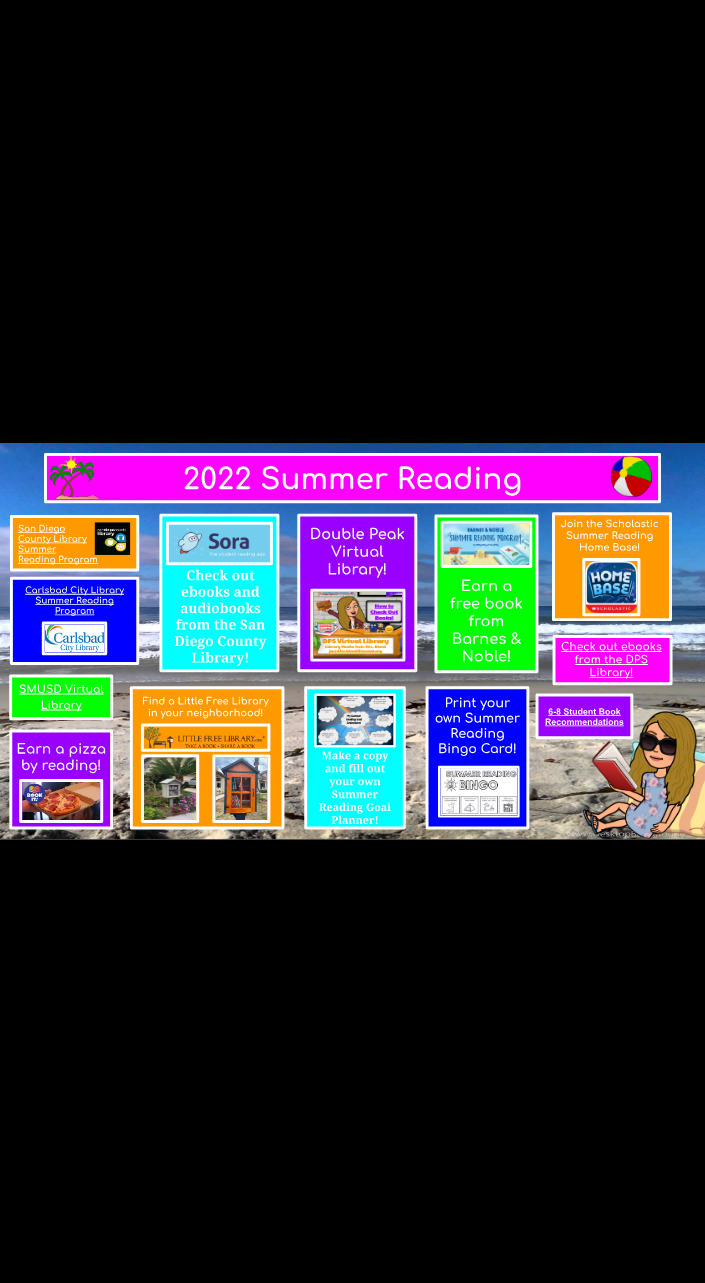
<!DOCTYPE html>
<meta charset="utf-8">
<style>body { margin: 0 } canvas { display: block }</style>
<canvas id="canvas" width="705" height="1283"></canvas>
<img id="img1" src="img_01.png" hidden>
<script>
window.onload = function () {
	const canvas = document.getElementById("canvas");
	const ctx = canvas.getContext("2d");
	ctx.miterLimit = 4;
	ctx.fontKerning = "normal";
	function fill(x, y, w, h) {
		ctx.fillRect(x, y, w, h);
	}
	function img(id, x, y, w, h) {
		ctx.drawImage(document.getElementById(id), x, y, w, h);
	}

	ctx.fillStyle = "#000000";
	fill(0, 0, 705, 1283);
	img("img1", 0, 443, 705, 397);
};
</script>
